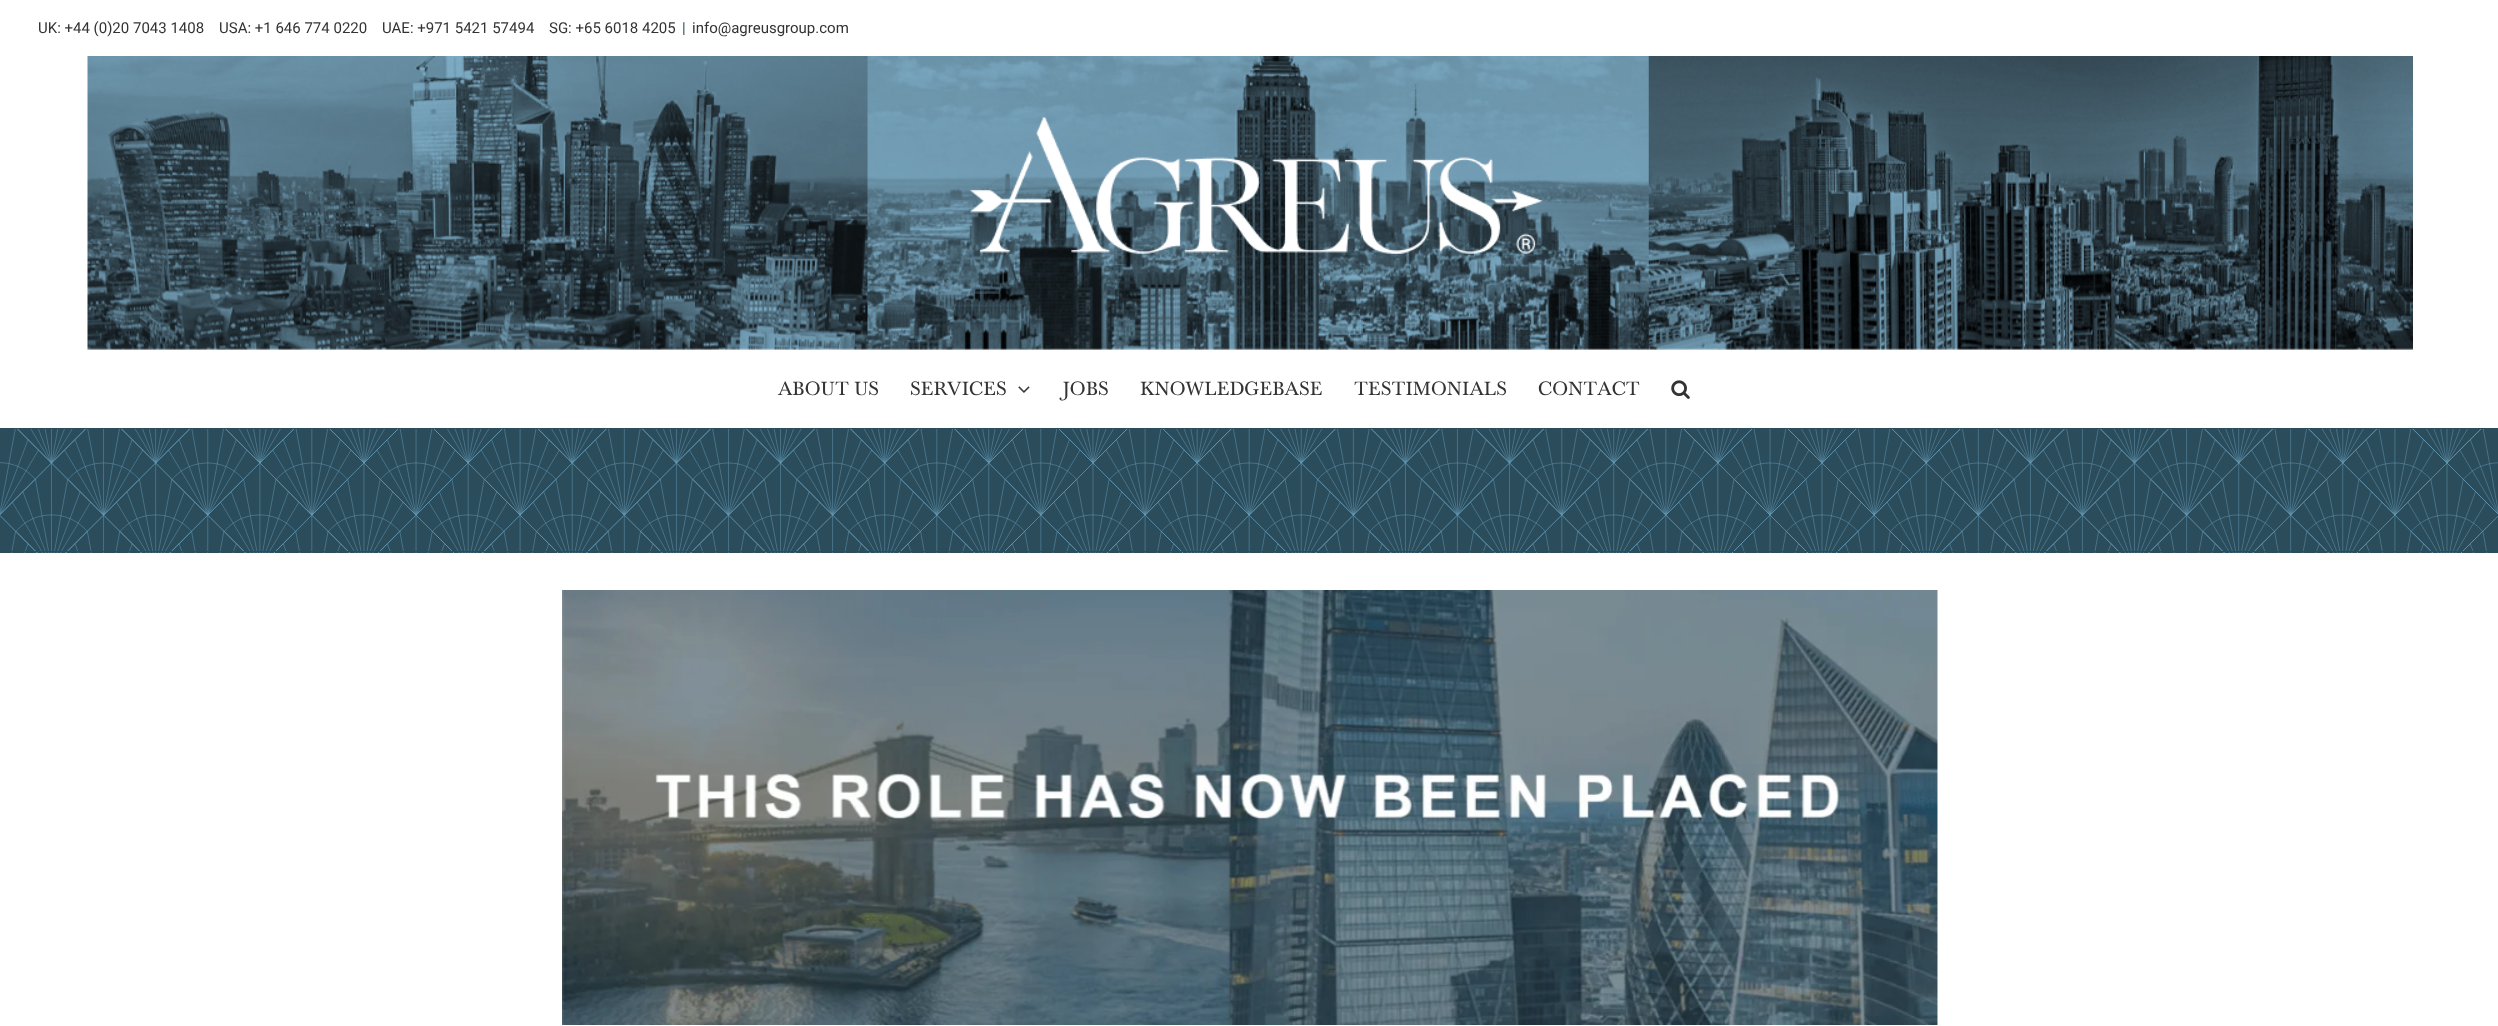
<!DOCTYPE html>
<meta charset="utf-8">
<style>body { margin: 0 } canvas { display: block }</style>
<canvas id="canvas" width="2498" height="1026"></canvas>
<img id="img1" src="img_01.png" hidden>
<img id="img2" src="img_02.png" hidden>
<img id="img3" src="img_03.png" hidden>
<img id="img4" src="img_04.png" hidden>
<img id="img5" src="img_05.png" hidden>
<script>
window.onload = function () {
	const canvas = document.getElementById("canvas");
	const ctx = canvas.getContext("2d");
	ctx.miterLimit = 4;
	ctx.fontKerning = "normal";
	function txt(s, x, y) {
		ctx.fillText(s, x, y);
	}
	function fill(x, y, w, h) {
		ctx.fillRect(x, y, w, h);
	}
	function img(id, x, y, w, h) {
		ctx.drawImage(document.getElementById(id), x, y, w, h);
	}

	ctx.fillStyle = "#FFFFFF";
	fill(0, 0, 2498, 1026);
	img("img1", 87, 56, 2326, 294);
	img("img2", 1018, 386, 12, 7);
	img("img3", 1671, 380, 19, 19);
	ctx.fillStyle = "#2B4C5B";
	fill(0, 428, 2498, 125);
	img("img4", 0, 429, 2498, 124);
	fill(11, 551, 2477, 1);
	img("img5", 562, 590, 1376, 435);
	ctx.font = "15px Roboto";
	ctx.fillStyle = "#333333";
	txt("UK: +44 (0)20 7043 1408", 38, 33);
	txt("USA: +1 646 774 0220", 219, 33);
	txt("UAE: +971 5421 57494", 382, 33);
	txt("SG: +65 6018 4205", 549, 33);
	ctx.fillStyle = "#2B4C5A";
	txt("|", 682, 33);
	ctx.fillStyle = "#333333";
	txt("info@agreusgroup.com", 692, 33);
	ctx.font = "20px Baskerville";
	txt("ABOUT US", 778, 395);
	txt("SERVICES", 910, 395);
	txt("JOBS", 1062, 395);
	txt("KNOWLEDGEBASE", 1140, 395);
	txt("TESTIMONIALS", 1354, 395);
	txt("CONTACT", 1538, 395);
};
</script>
